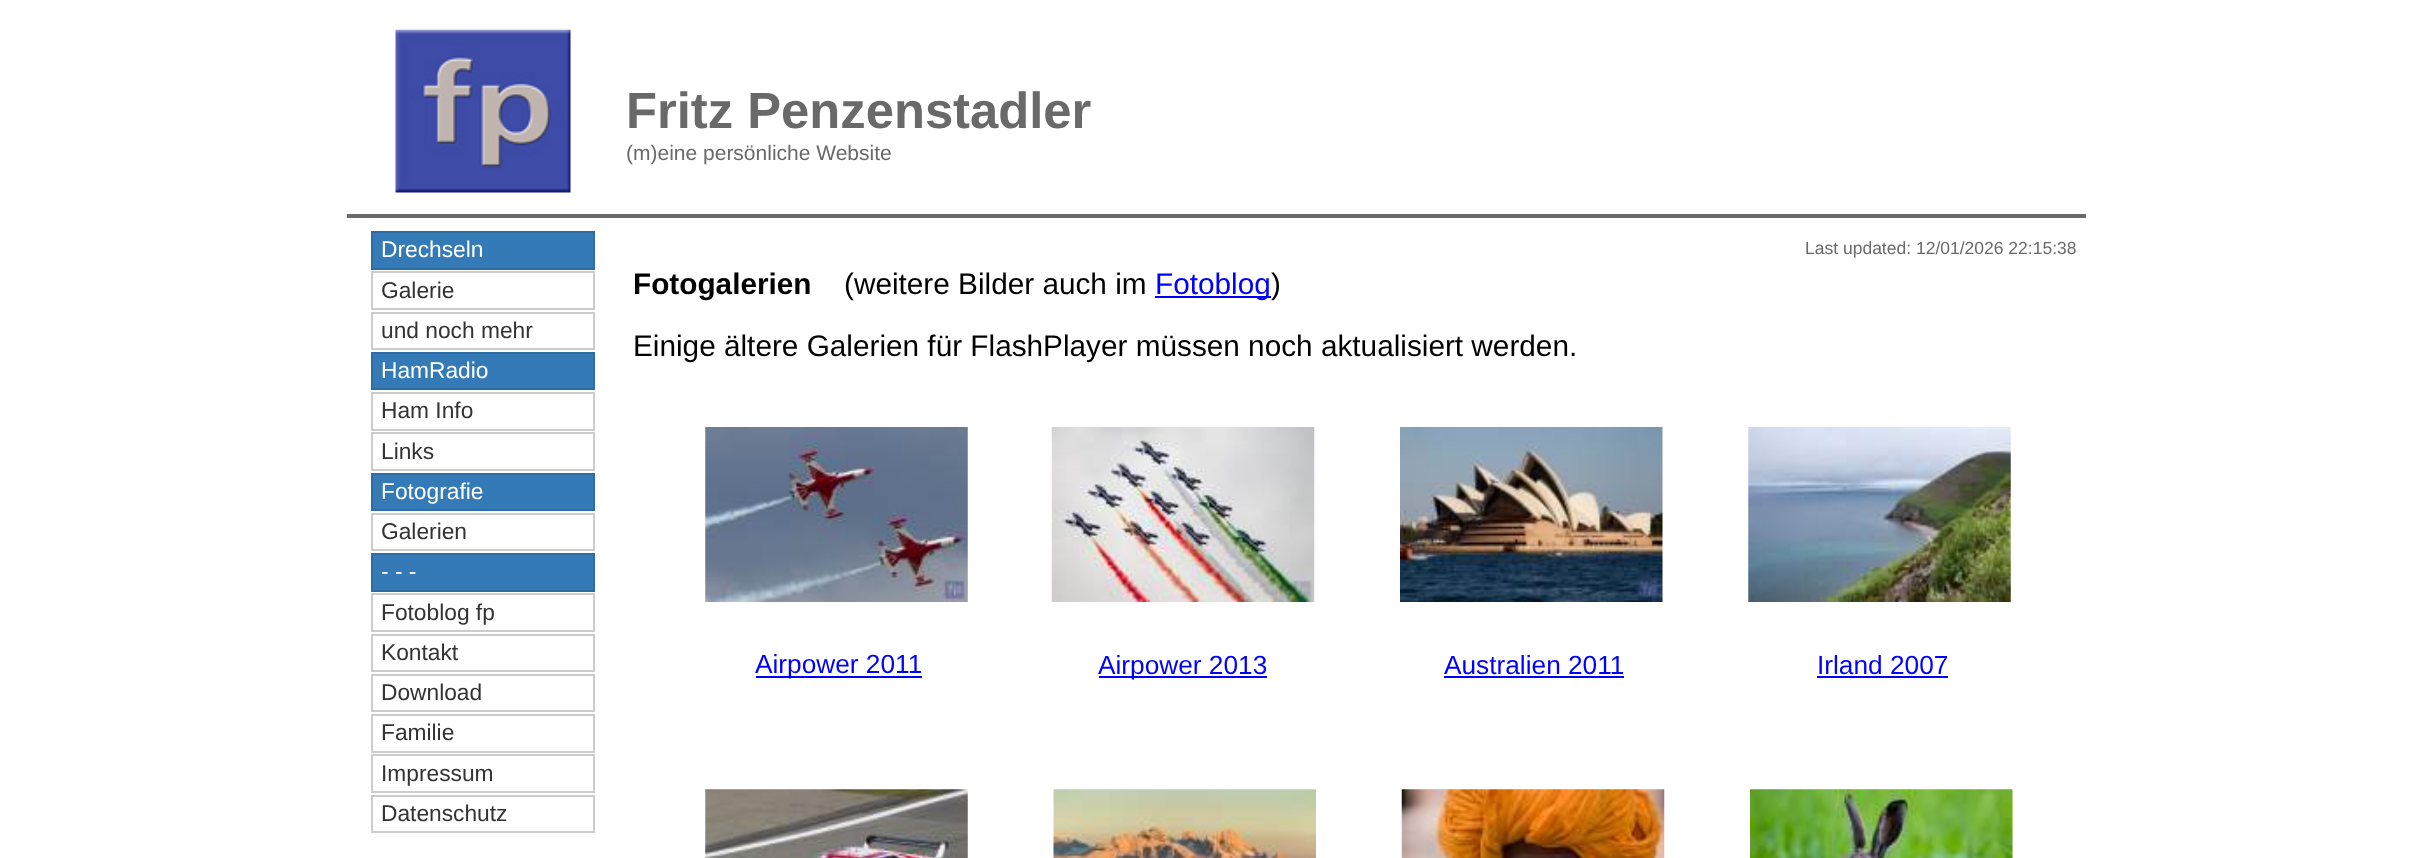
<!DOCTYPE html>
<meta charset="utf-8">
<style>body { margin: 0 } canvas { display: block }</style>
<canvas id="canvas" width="2431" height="858"></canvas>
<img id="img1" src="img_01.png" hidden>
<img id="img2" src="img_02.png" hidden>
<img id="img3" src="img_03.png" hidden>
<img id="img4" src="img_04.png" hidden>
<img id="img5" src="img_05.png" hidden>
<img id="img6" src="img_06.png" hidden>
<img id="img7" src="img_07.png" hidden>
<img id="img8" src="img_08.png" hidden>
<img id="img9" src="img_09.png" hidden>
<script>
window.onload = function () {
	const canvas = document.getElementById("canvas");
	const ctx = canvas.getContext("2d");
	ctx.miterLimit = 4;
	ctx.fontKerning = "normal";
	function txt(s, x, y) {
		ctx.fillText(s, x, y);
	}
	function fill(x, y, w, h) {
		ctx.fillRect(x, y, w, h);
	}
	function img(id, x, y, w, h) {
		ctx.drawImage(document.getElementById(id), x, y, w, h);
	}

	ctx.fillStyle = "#FFFFFF";
	fill(0, 0, 2431, 858);
	img("img1", 395, 29, 176, 164);
	ctx.fillStyle = "#696969";
	fill(347, 214, 1739, 4);
	ctx.fillStyle = "#337AB7";
	ctx.beginPath();
	ctx.rect(372, 232, 222, 37);
	ctx.fill();
	ctx.strokeStyle = "#2E6DA4";
	ctx.lineWidth = 2;
	ctx.stroke();
	ctx.strokeStyle = "#CCCCCC";
	ctx.strokeRect(372, 272, 222, 37);
	ctx.strokeRect(372, 313, 222, 36);
	ctx.beginPath();
	ctx.rect(372, 353, 222, 36);
	ctx.fill();
	ctx.strokeStyle = "#2E6DA4";
	ctx.stroke();
	ctx.strokeStyle = "#CCCCCC";
	ctx.strokeRect(372, 393, 222, 37);
	ctx.strokeRect(372, 433, 222, 37);
	ctx.beginPath();
	ctx.rect(372, 474, 222, 36);
	ctx.fill();
	ctx.strokeStyle = "#2E6DA4";
	ctx.stroke();
	ctx.strokeStyle = "#CCCCCC";
	ctx.strokeRect(372, 514, 222, 36);
	ctx.beginPath();
	ctx.rect(372, 554, 222, 37);
	ctx.fill();
	ctx.strokeStyle = "#2E6DA4";
	ctx.stroke();
	ctx.strokeStyle = "#CCCCCC";
	ctx.strokeRect(372, 594, 222, 37);
	ctx.strokeRect(372, 635, 222, 36);
	ctx.strokeRect(372, 675, 222, 36);
	ctx.strokeRect(372, 715, 222, 37);
	ctx.strokeRect(372, 755, 222, 37);
	ctx.strokeRect(372, 796, 222, 36);
	ctx.fillStyle = "#0000FF";
	fill(1155, 296, 116, 2);
	img("img2", 705, 427, 263, 175);
	img("img3", 1051, 427, 264, 175);
	img("img4", 1400, 427, 263, 175);
	img("img5", 1748, 427, 263, 175);
	fill(756, 676, 166, 2);
	fill(1099, 676, 168, 2);
	fill(1444, 676, 180, 2);
	fill(1817, 676, 131, 2);
	img("img6", 705, 789, 263, 69);
	img("img7", 1053, 789, 263, 69);
	img("img8", 1401, 789, 264, 69);
	img("img9", 1750, 789, 263, 69);
	ctx.font = "bold 50.75px Liberation Sans";
	ctx.fillStyle = "#696969";
	txt("Fritz Penzenstadler", 626, 128);
	ctx.font = "21px Liberation Sans";
	txt("(m)eine persönliche Website", 626, 160);
	ctx.font = "22.75px Liberation Sans";
	ctx.fillStyle = "#FFFFFF";
	txt("Drechseln", 381, 257);
	ctx.fillStyle = "#333333";
	txt("Galerie", 381, 298);
	txt("und noch mehr", 381, 338);
	ctx.fillStyle = "#FFFFFF";
	txt("HamRadio", 381, 378);
	ctx.fillStyle = "#333333";
	txt("Ham Info", 381, 418);
	txt("Links", 381, 459);
	ctx.fillStyle = "#FFFFFF";
	txt("Fotografie", 381, 499);
	ctx.fillStyle = "#333333";
	txt("Galerien", 381, 539);
	ctx.fillStyle = "#FFFFFF";
	txt("- - -", 381, 579);
	ctx.fillStyle = "#333333";
	txt("Fotoblog fp", 381, 620);
	txt("Kontakt", 381, 660);
	txt("Download", 381, 700);
	txt("Familie", 381, 740);
	txt("Impressum", 381, 781);
	txt("Datenschutz", 381, 821);
	ctx.font = "17.5px Liberation Sans";
	ctx.fillStyle = "#696969";
	txt("Last updated: 12/01/2026 22:15:38", 1805, 254);
	ctx.font = "bold 29.75px Liberation Sans";
	ctx.fillStyle = "#000000";
	txt("Fotogalerien", 633, 294);
	ctx.font = "29.75px Liberation Sans";
	txt("(weitere Bilder auch im", 844, 294);
	ctx.fillStyle = "#0000FF";
	txt("Fotoblog", 1155, 294);
	ctx.fillStyle = "#000000";
	txt(")", 1271, 294);
	txt("Einige ältere Galerien für FlashPlayer müssen noch aktualisiert werden.", 633, 356);
	ctx.font = "26.25px Liberation Sans";
	ctx.fillStyle = "#0000FF";
	txt("Airpower 2011", 755, 673);
	txt("Airpower 2013", 1098, 674);
	txt("Australien 2011", 1444, 674);
	txt("Irland 2007", 1817, 674);
};
</script>
